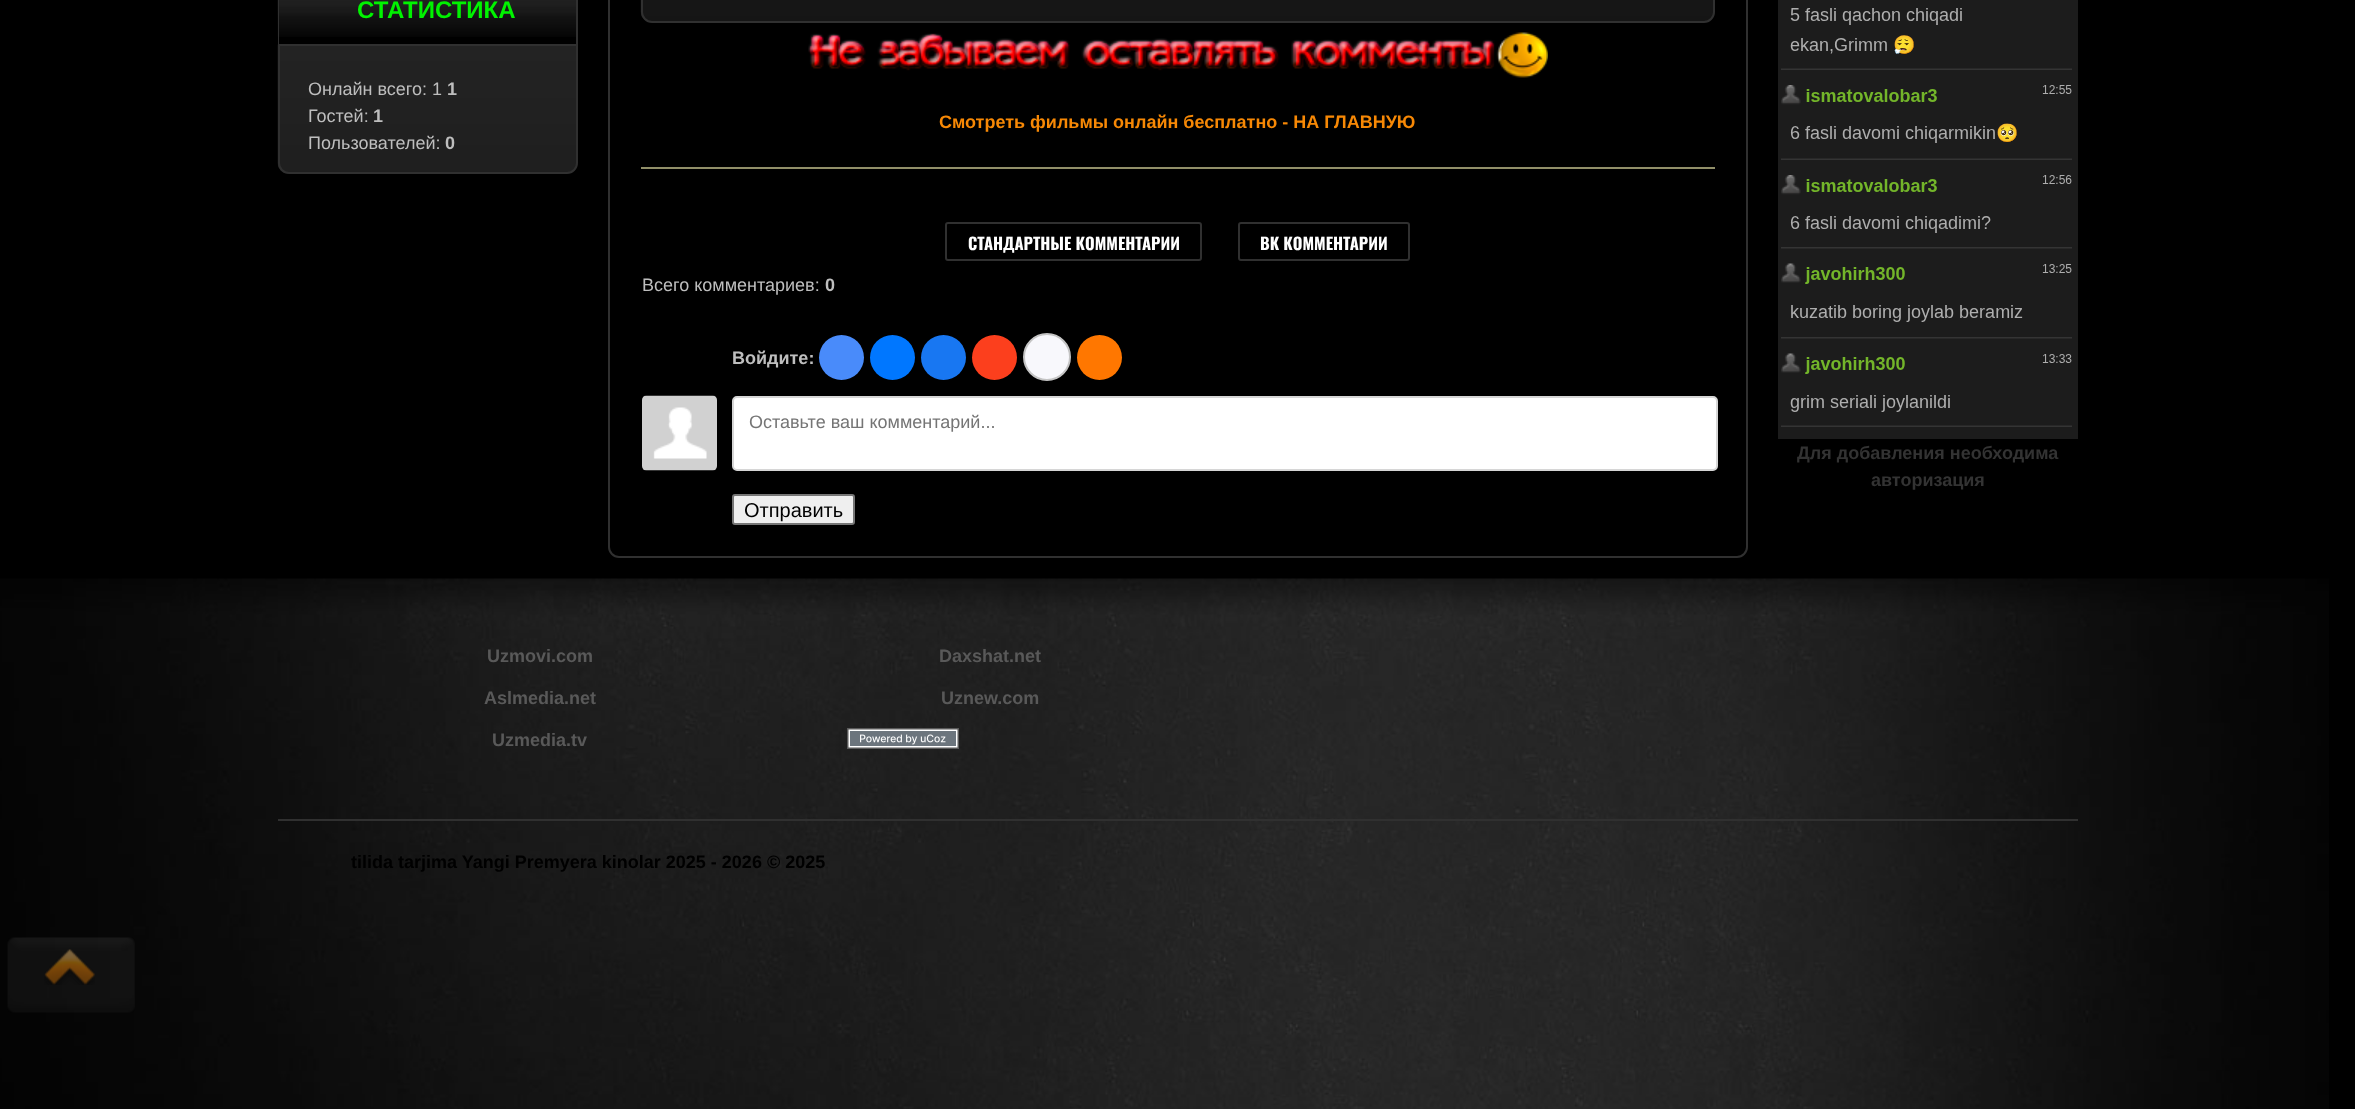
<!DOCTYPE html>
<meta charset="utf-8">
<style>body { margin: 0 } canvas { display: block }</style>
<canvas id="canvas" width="2355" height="1109"></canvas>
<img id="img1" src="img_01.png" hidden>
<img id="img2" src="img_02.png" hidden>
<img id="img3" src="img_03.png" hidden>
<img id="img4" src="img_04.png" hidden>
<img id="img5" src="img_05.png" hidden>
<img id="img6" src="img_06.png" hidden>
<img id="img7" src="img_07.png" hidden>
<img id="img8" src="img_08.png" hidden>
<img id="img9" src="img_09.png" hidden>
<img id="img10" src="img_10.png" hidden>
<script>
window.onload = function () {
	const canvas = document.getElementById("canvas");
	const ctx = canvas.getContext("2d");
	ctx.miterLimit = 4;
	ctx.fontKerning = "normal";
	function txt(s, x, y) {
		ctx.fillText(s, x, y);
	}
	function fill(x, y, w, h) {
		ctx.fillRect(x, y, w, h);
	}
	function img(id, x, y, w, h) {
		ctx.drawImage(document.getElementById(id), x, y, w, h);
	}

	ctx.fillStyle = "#000000";
	fill(0, 0, 2355, 1109);
	img("img1", 277, 0, 299, 37);
	ctx.fillStyle = "#303030";
	ctx.beginPath();
	ctx.moveTo(286, -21);
	ctx.lineTo(568, -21);
	ctx.bezierCurveTo(573, -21, 578, -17, 578, -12);
	ctx.lineTo(578, 44);
	ctx.lineTo(278, 44);
	ctx.lineTo(278, -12);
	ctx.bezierCurveTo(278, -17, 282, -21, 286, -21);
	ctx.closePath();
	ctx.moveTo(286, -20);
	ctx.lineTo(568, -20);
	ctx.bezierCurveTo(573, -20, 576, -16, 576, -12);
	ctx.lineTo(576, 44);
	ctx.lineTo(279, 44);
	ctx.lineTo(279, -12);
	ctx.bezierCurveTo(279, -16, 282, -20, 286, -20);
	ctx.closePath();
	ctx.fill("evenodd");
	img("img2", 277, 44, 301, 130);
	ctx.beginPath();
	ctx.roundRect(279, 45, 298, 128, [0, 0, 10, 10]);
	ctx.strokeStyle = "#303030";
	ctx.lineWidth = 2;
	ctx.stroke();
	img("img3", 1778, 0, 300, 439);
	ctx.beginPath();
	ctx.moveTo(609, -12);
	ctx.lineTo(1747, -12);
	ctx.lineTo(1747, 547);
	ctx.bezierCurveTo(1747, 552.5, 1742.5, 557, 1737, 557);
	ctx.lineTo(619, 557);
	ctx.bezierCurveTo(613.5, 557, 609, 552.5, 609, 547);
	ctx.closePath();
	ctx.stroke();
	img("img4", 640, 0, 1075, 22);
	ctx.beginPath();
	ctx.moveTo(642, -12);
	ctx.lineTo(1714, -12);
	ctx.lineTo(1714, 12);
	ctx.bezierCurveTo(1714, 17.5, 1709.5, 22, 1704, 22);
	ctx.lineTo(652, 22);
	ctx.bezierCurveTo(646.5, 22, 642, 17.5, 642, 12);
	ctx.closePath();
	ctx.stroke();
	img("img5", 808, 32, 740, 46);
	ctx.fillStyle = "#918F69";
	fill(641, 167, 1074, 2);
	ctx.beginPath();
	ctx.roundRect(946, 223, 255, 37, 2);
	ctx.stroke();
	ctx.beginPath();
	ctx.roundRect(1239, 223, 170, 37, 2);
	ctx.stroke();
	ctx.fillStyle = "#498BFA";
	ctx.beginPath();
	ctx.arc(841.5, 357.5, 22.5, 0, Math.PI * 2);
	ctx.fill();
	ctx.fillStyle = "#0077FF";
	ctx.beginPath();
	ctx.arc(892.5, 357.5, 22.5, 0, Math.PI * 2);
	ctx.fill();
	ctx.fillStyle = "#1877F2";
	ctx.beginPath();
	ctx.arc(943.5, 357.5, 22.5, 0, Math.PI * 2);
	ctx.fill();
	ctx.fillStyle = "#FC3F1D";
	ctx.beginPath();
	ctx.arc(994.5, 357.5, 22.5, 0, Math.PI * 2);
	ctx.fill();
	ctx.fillStyle = "#F8F8FC";
	ctx.beginPath();
	ctx.arc(1047, 357, 23, 0, Math.PI * 2);
	ctx.fill();
	ctx.strokeStyle = "#C4C4C4";
	ctx.stroke();
	ctx.fillStyle = "#FF7700";
	ctx.beginPath();
	ctx.arc(1099.5, 357.5, 22.5, 0, Math.PI * 2);
	ctx.fill();
	img("img6", 642, 395, 75, 76);
	ctx.fillStyle = "#FFFFFF";
	ctx.beginPath();
	ctx.roundRect(733, 397, 984, 73, 4);
	ctx.fill();
	ctx.strokeStyle = "#D6D6D6";
	ctx.stroke();
	ctx.fillStyle = "#EFEFEF";
	ctx.beginPath();
	ctx.roundRect(733, 495, 121, 29, 2);
	ctx.fill();
	ctx.strokeStyle = "#767676";
	ctx.stroke();
	img("img7", 0, 578, 2329, 531);
	img("img8", 847, 728, 112, 21);
	ctx.fillStyle = "#303030";
	fill(278, 819, 1800, 2);
	img("img9", 7, 937, 128, 76);
	img("img10", 44, 949, 51, 36);
	ctx.font = "bold 24px Liberation Sans";
	ctx.fillStyle = "#00F300";
	txt("СТАТИСТИКА", 357, 18);
	ctx.font = "18px Liberation Sans";
	ctx.fillStyle = "#BEBEBE";
	txt("Онлайн всего: 1", 308, 95);
	ctx.font = "bold 18px Liberation Sans";
	txt("1", 447, 95);
	ctx.font = "18px Liberation Sans";
	txt("Гостей:", 308, 122);
	ctx.font = "bold 18px Liberation Sans";
	txt("1", 373, 122);
	ctx.font = "18px Liberation Sans";
	txt("Пользователей:", 308, 149);
	ctx.font = "bold 18px Liberation Sans";
	txt("0", 445, 149);
	ctx.fillStyle = "#333333";
	txt("Для добавления необходима", 1797, 459);
	txt("авторизация", 1871, 486);
	ctx.fillStyle = "#F78805";
	txt("Смотреть фильмы онлайн бесплатно - НА ГЛАВНУЮ", 939, 128);
	ctx.font = "bold 16.5px Oswald";
	ctx.fillStyle = "#FFFFFF";
	txt("СТАНДАРТНЫЕ КОММЕНТАРИИ", 968, 250);
	txt("ВК КОММЕНТАРИИ", 1260, 250);
	ctx.font = "18px Liberation Sans";
	ctx.fillStyle = "#BEBEBE";
	txt("Всего комментариев:", 642, 291);
	ctx.font = "bold 18px Liberation Sans";
	txt("0", 825, 291);
	txt("Войдите:", 732, 364);
	ctx.font = "18px Liberation Sans";
	ctx.fillStyle = "#757575";
	txt("Оставьте ваш комментарий...", 749, 428);
	ctx.font = "20px Liberation Sans";
	ctx.fillStyle = "#000000";
	txt("Отправить", 744, 517);
	ctx.font = "bold 18px Liberation Sans";
	ctx.fillStyle = "#595959";
	txt("Uzmovi.com", 487, 662);
	txt("Aslmedia.net", 484, 704);
	txt("Uzmedia.tv", 492, 746);
	txt("Daxshat.net", 939, 662);
	txt("Uznew.com", 941, 704);
	ctx.fillStyle = "#000000";
	txt("tilida tarjima Yangi Premyera kinolar 2025 - 2026 © 2025", 351, 868);
};
</script>
